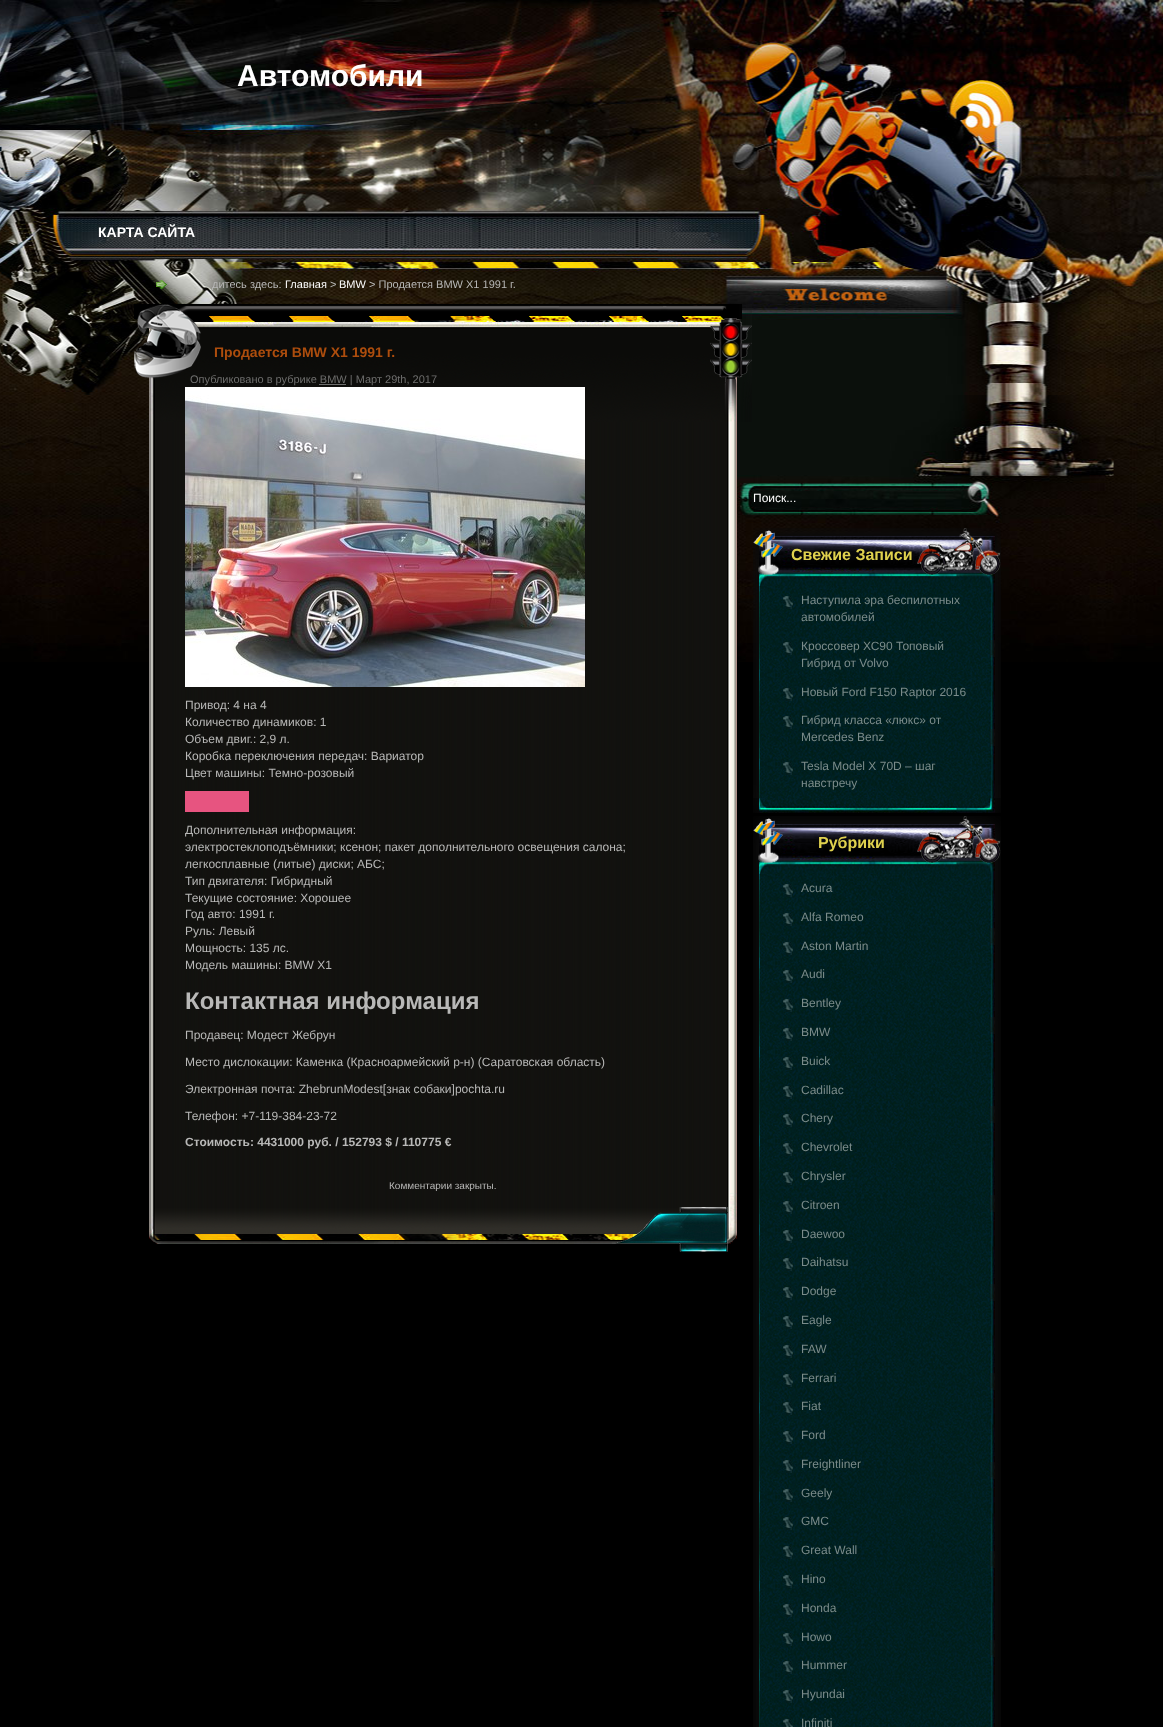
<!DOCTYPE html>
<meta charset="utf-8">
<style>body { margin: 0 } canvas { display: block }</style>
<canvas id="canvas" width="1163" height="1727"></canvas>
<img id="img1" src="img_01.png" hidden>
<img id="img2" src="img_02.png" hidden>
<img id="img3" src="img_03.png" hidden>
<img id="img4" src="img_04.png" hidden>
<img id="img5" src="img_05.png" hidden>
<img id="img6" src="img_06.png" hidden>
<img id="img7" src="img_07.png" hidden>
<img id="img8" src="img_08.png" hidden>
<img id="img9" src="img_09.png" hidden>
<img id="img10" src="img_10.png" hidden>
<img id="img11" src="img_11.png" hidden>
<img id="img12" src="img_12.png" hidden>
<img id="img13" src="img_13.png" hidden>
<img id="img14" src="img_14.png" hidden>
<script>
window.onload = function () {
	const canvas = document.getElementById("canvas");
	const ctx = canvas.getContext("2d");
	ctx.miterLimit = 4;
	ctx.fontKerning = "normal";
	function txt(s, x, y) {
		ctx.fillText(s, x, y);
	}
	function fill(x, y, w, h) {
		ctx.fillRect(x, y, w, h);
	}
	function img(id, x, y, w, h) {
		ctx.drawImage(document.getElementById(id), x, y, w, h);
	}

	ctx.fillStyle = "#000000";
	fill(0, 0, 1163, 1727);
	img("img1", 0, 0, 1163, 395);
	img("img2", 0, 395, 1163, 267);
	img("img3", 156, 280, 11, 9);
	img("img4", 149, 319, 588, 874);
	img("img5", 134, 304, 618, 118);
	ctx.fillStyle = "#6E6E6D";
	fill(319, 384, 27, 1);
	img("img6", 185, 387, 400, 300);
	ctx.fillStyle = "#E75480";
	fill(185, 791, 64, 21);
	img("img7", 149, 1193, 588, 59);
	img("img8", 753, 785, 248, 28);
	img("img9", 753, 528, 248, 58);
	img("img10", 753, 586, 248, 212);
	img("img11", 783, 596, 10, 13);
	img("img11", 783, 642, 10, 13);
	img("img11", 783, 688, 10, 13);
	img("img11", 783, 716, 10, 13);
	img("img11", 783, 762, 10, 13);
	img("img12", 753, 816, 248, 58);
	img("img13", 753, 874, 248, 853);
	img("img11", 783, 884, 10, 13);
	img("img11", 783, 913, 10, 13);
	img("img11", 783, 942, 10, 13);
	img("img11", 783, 970, 10, 13);
	img("img11", 783, 999, 10, 13);
	img("img11", 783, 1028, 10, 13);
	img("img11", 783, 1057, 10, 13);
	img("img11", 783, 1086, 10, 13);
	img("img11", 783, 1114, 10, 13);
	img("img11", 783, 1143, 10, 13);
	img("img11", 783, 1172, 10, 13);
	img("img11", 783, 1201, 10, 13);
	img("img11", 783, 1230, 10, 13);
	img("img11", 783, 1258, 10, 13);
	img("img11", 783, 1287, 10, 13);
	img("img11", 783, 1316, 10, 13);
	img("img11", 783, 1345, 10, 13);
	img("img11", 783, 1374, 10, 13);
	img("img11", 783, 1402, 10, 13);
	img("img11", 783, 1431, 10, 13);
	img("img11", 783, 1460, 10, 13);
	img("img11", 783, 1489, 10, 13);
	img("img11", 783, 1517, 10, 13);
	img("img11", 783, 1546, 10, 13);
	img("img11", 783, 1575, 10, 13);
	img("img11", 783, 1604, 10, 13);
	img("img11", 783, 1633, 10, 13);
	img("img11", 783, 1661, 10, 13);
	img("img11", 783, 1690, 10, 13);
	img("img14", 783, 1719, 10, 8);
	ctx.font = "bold 30px Liberation Sans";
	ctx.fillStyle = "#FFFFFF";
	txt("Автомобили", 237, 86);
	ctx.font = "bold 14px Liberation Sans";
	txt("КАРТА САЙТА", 98, 237);
	ctx.font = "11px Liberation Sans";
	ctx.fillStyle = "#B8B8B7";
	txt("дитесь здесь:", 212, 288);
	ctx.fillStyle = "#FFFFFF";
	txt("Главная", 285, 288);
	ctx.fillStyle = "#B8B8B7";
	txt(">", 330, 288);
	ctx.fillStyle = "#FFFFFF";
	txt("BMW", 339, 288);
	ctx.fillStyle = "#B8B8B7";
	txt("> Продается BMW X1 1991 г.", 369, 288);
	ctx.font = "bold 14px Liberation Sans";
	ctx.fillStyle = "#AD4D0D";
	txt("Продается BMW X1 1991 г.", 214, 357);
	ctx.font = "11px Liberation Sans";
	ctx.fillStyle = "#6E6E6D";
	txt("Опубликовано в рубрике BMW | Март 29th, 2017", 190, 383);
	ctx.font = "12px Liberation Sans";
	ctx.fillStyle = "#B8B8B7";
	txt("Привод: 4 на 4", 185, 709);
	txt("Количество динамиков: 1", 185, 726);
	txt("Объем двиг.: 2,9 л.", 185, 743);
	txt("Коробка переключения передач: Вариатор", 185, 760);
	txt("Цвет машины: Темно-розовый", 185, 777);
	ctx.save();
	ctx.beginPath();
	ctx.rect(185, 387, 516, 774);
	ctx.clip();
	txt("Дополнительная информация:", 185, 834);
	ctx.restore();
	txt("электростеклоподъёмники; ксенон; пакет дополнительного освещения салона;", 185, 851);
	txt("легкосплавные (литые) диски; АБС;", 185, 868);
	txt("Тип двигателя: Гибридный", 185, 885);
	txt("Текущие состояние: Хорошее", 185, 902);
	txt("Год авто: 1991 г.", 185, 918);
	txt("Руль: Левый", 185, 935);
	txt("Мощность: 135 лс.", 185, 952);
	txt("Модель машины: BMW X1", 185, 969);
	ctx.font = "bold 24px Liberation Sans";
	txt("Контактная информация", 185, 1009);
	ctx.font = "12px Liberation Sans";
	txt("Продавец: Модест Жебрун", 185, 1039);
	txt("Место дислокации: Каменка (Красноармейский р-н) (Саратовская область)", 185, 1066);
	txt("Электронная почта: ZhebrunModest[знак собаки]pochta.ru", 185, 1093);
	txt("Телефон: +7-119-384-23-72", 185, 1120);
	ctx.font = "bold 12px Liberation Sans";
	txt("Стоимость: 4431000 руб. / 152793 $ / 110775 €", 185, 1146);
	ctx.font = "10px Liberation Sans";
	txt("Комментарии закрыты.", 389, 1189);
	ctx.font = "12px Liberation Sans";
	ctx.fillStyle = "#FFFFFF";
	txt("Поиск...", 753, 502);
	ctx.font = "bold 16px Liberation Sans";
	ctx.fillStyle = "#DFD14E";
	txt("Свежие Записи", 791, 560);
	ctx.font = "12px Liberation Sans";
	ctx.fillStyle = "#7A8B8A";
	txt("Наступила эра беспилотных", 801, 604);
	txt("автомобилей", 801, 621);
	txt("Кроссовер ХС90 Топовый", 801, 650);
	txt("Гибрид от Volvo", 801, 667);
	txt("Новый Ford F150 Raptor 2016", 801, 696);
	txt("Гибрид класса «люкс» от", 801, 724);
	txt("Mercedes Benz", 801, 741);
	txt("Tesla Model X 70D – шаг", 801, 770);
	txt("навстречу", 801, 787);
	ctx.font = "bold 16px Liberation Sans";
	ctx.fillStyle = "#DFD14E";
	txt("Рубрики", 818, 848);
	ctx.font = "12px Liberation Sans";
	ctx.fillStyle = "#7A8B8A";
	txt("Acura", 801, 892);
	txt("Alfa Romeo", 801, 921);
	txt("Aston Martin", 801, 950);
	txt("Audi", 801, 978);
	txt("Bentley", 801, 1007);
	txt("BMW", 801, 1036);
	txt("Buick", 801, 1065);
	txt("Cadillac", 801, 1094);
	txt("Chery", 801, 1122);
	txt("Chevrolet", 801, 1151);
	txt("Chrysler", 801, 1180);
	txt("Citroen", 801, 1209);
	txt("Daewoo", 801, 1238);
	txt("Daihatsu", 801, 1266);
	txt("Dodge", 801, 1295);
	txt("Eagle", 801, 1324);
	txt("FAW", 801, 1353);
	txt("Ferrari", 801, 1382);
	txt("Fiat", 801, 1410);
	txt("Ford", 801, 1439);
	txt("Freightliner", 801, 1468);
	txt("Geely", 801, 1497);
	txt("GMC", 801, 1525);
	txt("Great Wall", 801, 1554);
	txt("Hino", 801, 1583);
	txt("Honda", 801, 1612);
	txt("Howo", 801, 1641);
	txt("Hummer", 801, 1669);
	txt("Hyundai", 801, 1698);
	txt("Infiniti", 801, 1727);
};
</script>
